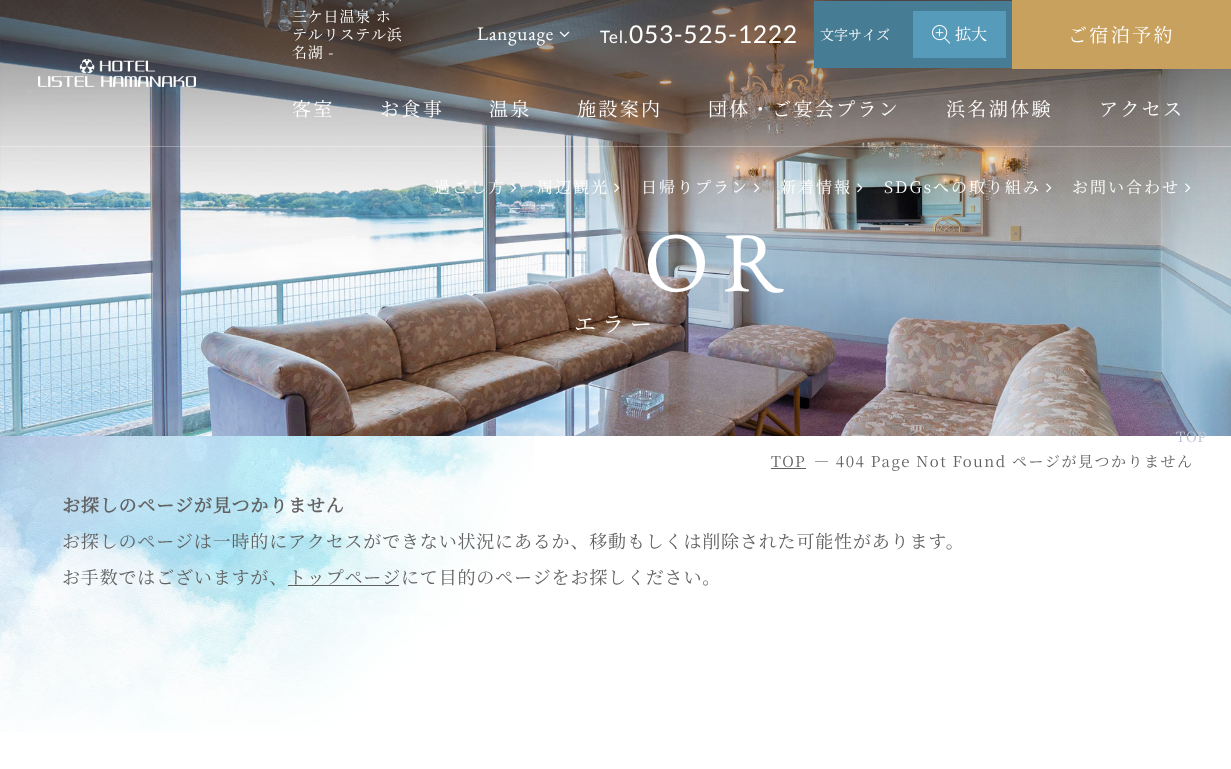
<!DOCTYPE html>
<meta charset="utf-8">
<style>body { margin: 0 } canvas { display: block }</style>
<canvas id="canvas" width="1231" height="769"></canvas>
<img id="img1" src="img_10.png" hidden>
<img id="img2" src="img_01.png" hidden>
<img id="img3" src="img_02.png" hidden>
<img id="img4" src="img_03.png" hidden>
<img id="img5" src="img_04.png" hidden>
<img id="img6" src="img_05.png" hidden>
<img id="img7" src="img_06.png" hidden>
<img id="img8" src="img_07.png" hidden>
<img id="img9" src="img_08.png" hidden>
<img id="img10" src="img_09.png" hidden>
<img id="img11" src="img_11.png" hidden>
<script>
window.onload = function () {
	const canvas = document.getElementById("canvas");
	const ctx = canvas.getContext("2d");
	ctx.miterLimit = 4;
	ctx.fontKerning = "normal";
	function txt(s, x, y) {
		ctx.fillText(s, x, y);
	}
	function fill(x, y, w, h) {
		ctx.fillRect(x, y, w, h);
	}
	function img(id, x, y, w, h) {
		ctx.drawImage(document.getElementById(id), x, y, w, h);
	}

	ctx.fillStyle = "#FFFFFF";
	fill(0, 0, 1231, 769);
	img("img1", 0, 0, 1231, 436);
	ctx.fillStyle = "rgba(255, 255, 255, 0.3)";
	fill(0, 146, 1231, 1);
	img("img2", 38, 59, 158, 28);
	img("img3", 559, 31, 11, 7);
	ctx.fillStyle = "#467C94";
	fill(814, 1, 198, 67);
	ctx.fillStyle = "#569BBA";
	fill(913, 11, 93, 47);
	img("img4", 932, 25, 18, 19);
	ctx.fillStyle = "#C9A15F";
	fill(1012, 0, 219, 69);
	img("img5", 511, 183, 6, 10);
	img("img6", 614, 183, 6, 10);
	img("img7", 754, 183, 6, 10);
	img("img8", 857, 183, 6, 10);
	img("img9", 1046, 183, 6, 10);
	img("img10", 1185, 183, 6, 10);
	img("img11", 0, 436, 534, 296);
	ctx.fillStyle = "#616161";
	fill(771, 468, 35, 1);
	fill(288, 585, 111, 1);
	ctx.letterSpacing = "0.8px";
	ctx.font = "200 15px Noto Serif JP";
	ctx.fillStyle = "#FFFFFF";
	txt("三ケ日温泉 ホ", 292, 22);
	txt("テルリステル浜", 292, 40);
	txt("名湖 -", 292, 58);
	ctx.font = "19.1px EB Garamond";
	txt("Language", 477, 40);
	ctx.font = "17px Lato";
	txt("Tel.", 600, 43);
	ctx.font = "24.5px Lato";
	txt("053-525-1222", 629, 43);
	ctx.letterSpacing = "0px";
	ctx.font = "200 14px Noto Serif JP";
	txt("文字サイズ", 820, 40);
	ctx.font = "200 16px Noto Serif JP";
	txt("拡大", 955, 40);
	ctx.letterSpacing = "2.25px";
	ctx.font = "200 19.1px Noto Serif JP";
	txt("ご宿泊予約", 1068, 42);
	txt("客室", 292, 116);
	txt("お食事", 380, 116);
	txt("温泉", 489, 116);
	txt("施設案内", 577, 116);
	txt("団体・ご宴会プラン", 708, 116);
	txt("浜名湖体験", 946, 116);
	txt("アクセス", 1099, 116);
	ctx.letterSpacing = "2px";
	ctx.font = "200 16px Noto Serif JP";
	txt("過ごし方", 434, 193);
	txt("周辺観光", 537, 193);
	txt("日帰りプラン", 641, 193);
	txt("新着情報", 780, 193);
	txt("SDGsへの取り組み", 884, 193);
	txt("お問い合わせ", 1072, 193);
	ctx.letterSpacing = "14px";
	ctx.font = "85px EB Garamond";
	txt("OR", 644, 291);
	ctx.letterSpacing = "6px";
	ctx.font = "200 22px Noto Serif JP";
	txt("エラー", 574, 332);
	ctx.letterSpacing = "1.5px";
	ctx.font = "200 15px Noto Serif JP";
	ctx.fillStyle = "#616161";
	txt("TOP", 771, 467);
	txt("― 404 Page Not Found ページが見つかりません", 814, 467);
	ctx.letterSpacing = "0.8px";
	ctx.font = "bold 18.05px Noto Serif JP";
	txt("お探しのページが見つかりません", 62, 512);
	ctx.font = "200 18.05px Noto Serif JP";
	txt("お探しのページは一時的にアクセスができない状況にあるか、移動もしくは削除された可能性があります。", 62, 548);
	txt("お手数ではございますが、トップページにて目的のページをお探しください。", 62, 584);
	ctx.font = "200 14px Noto Serif JP";
	ctx.fillStyle = "#B9C2D2";
	txt("TOP", 1176, 442);
};
</script>
